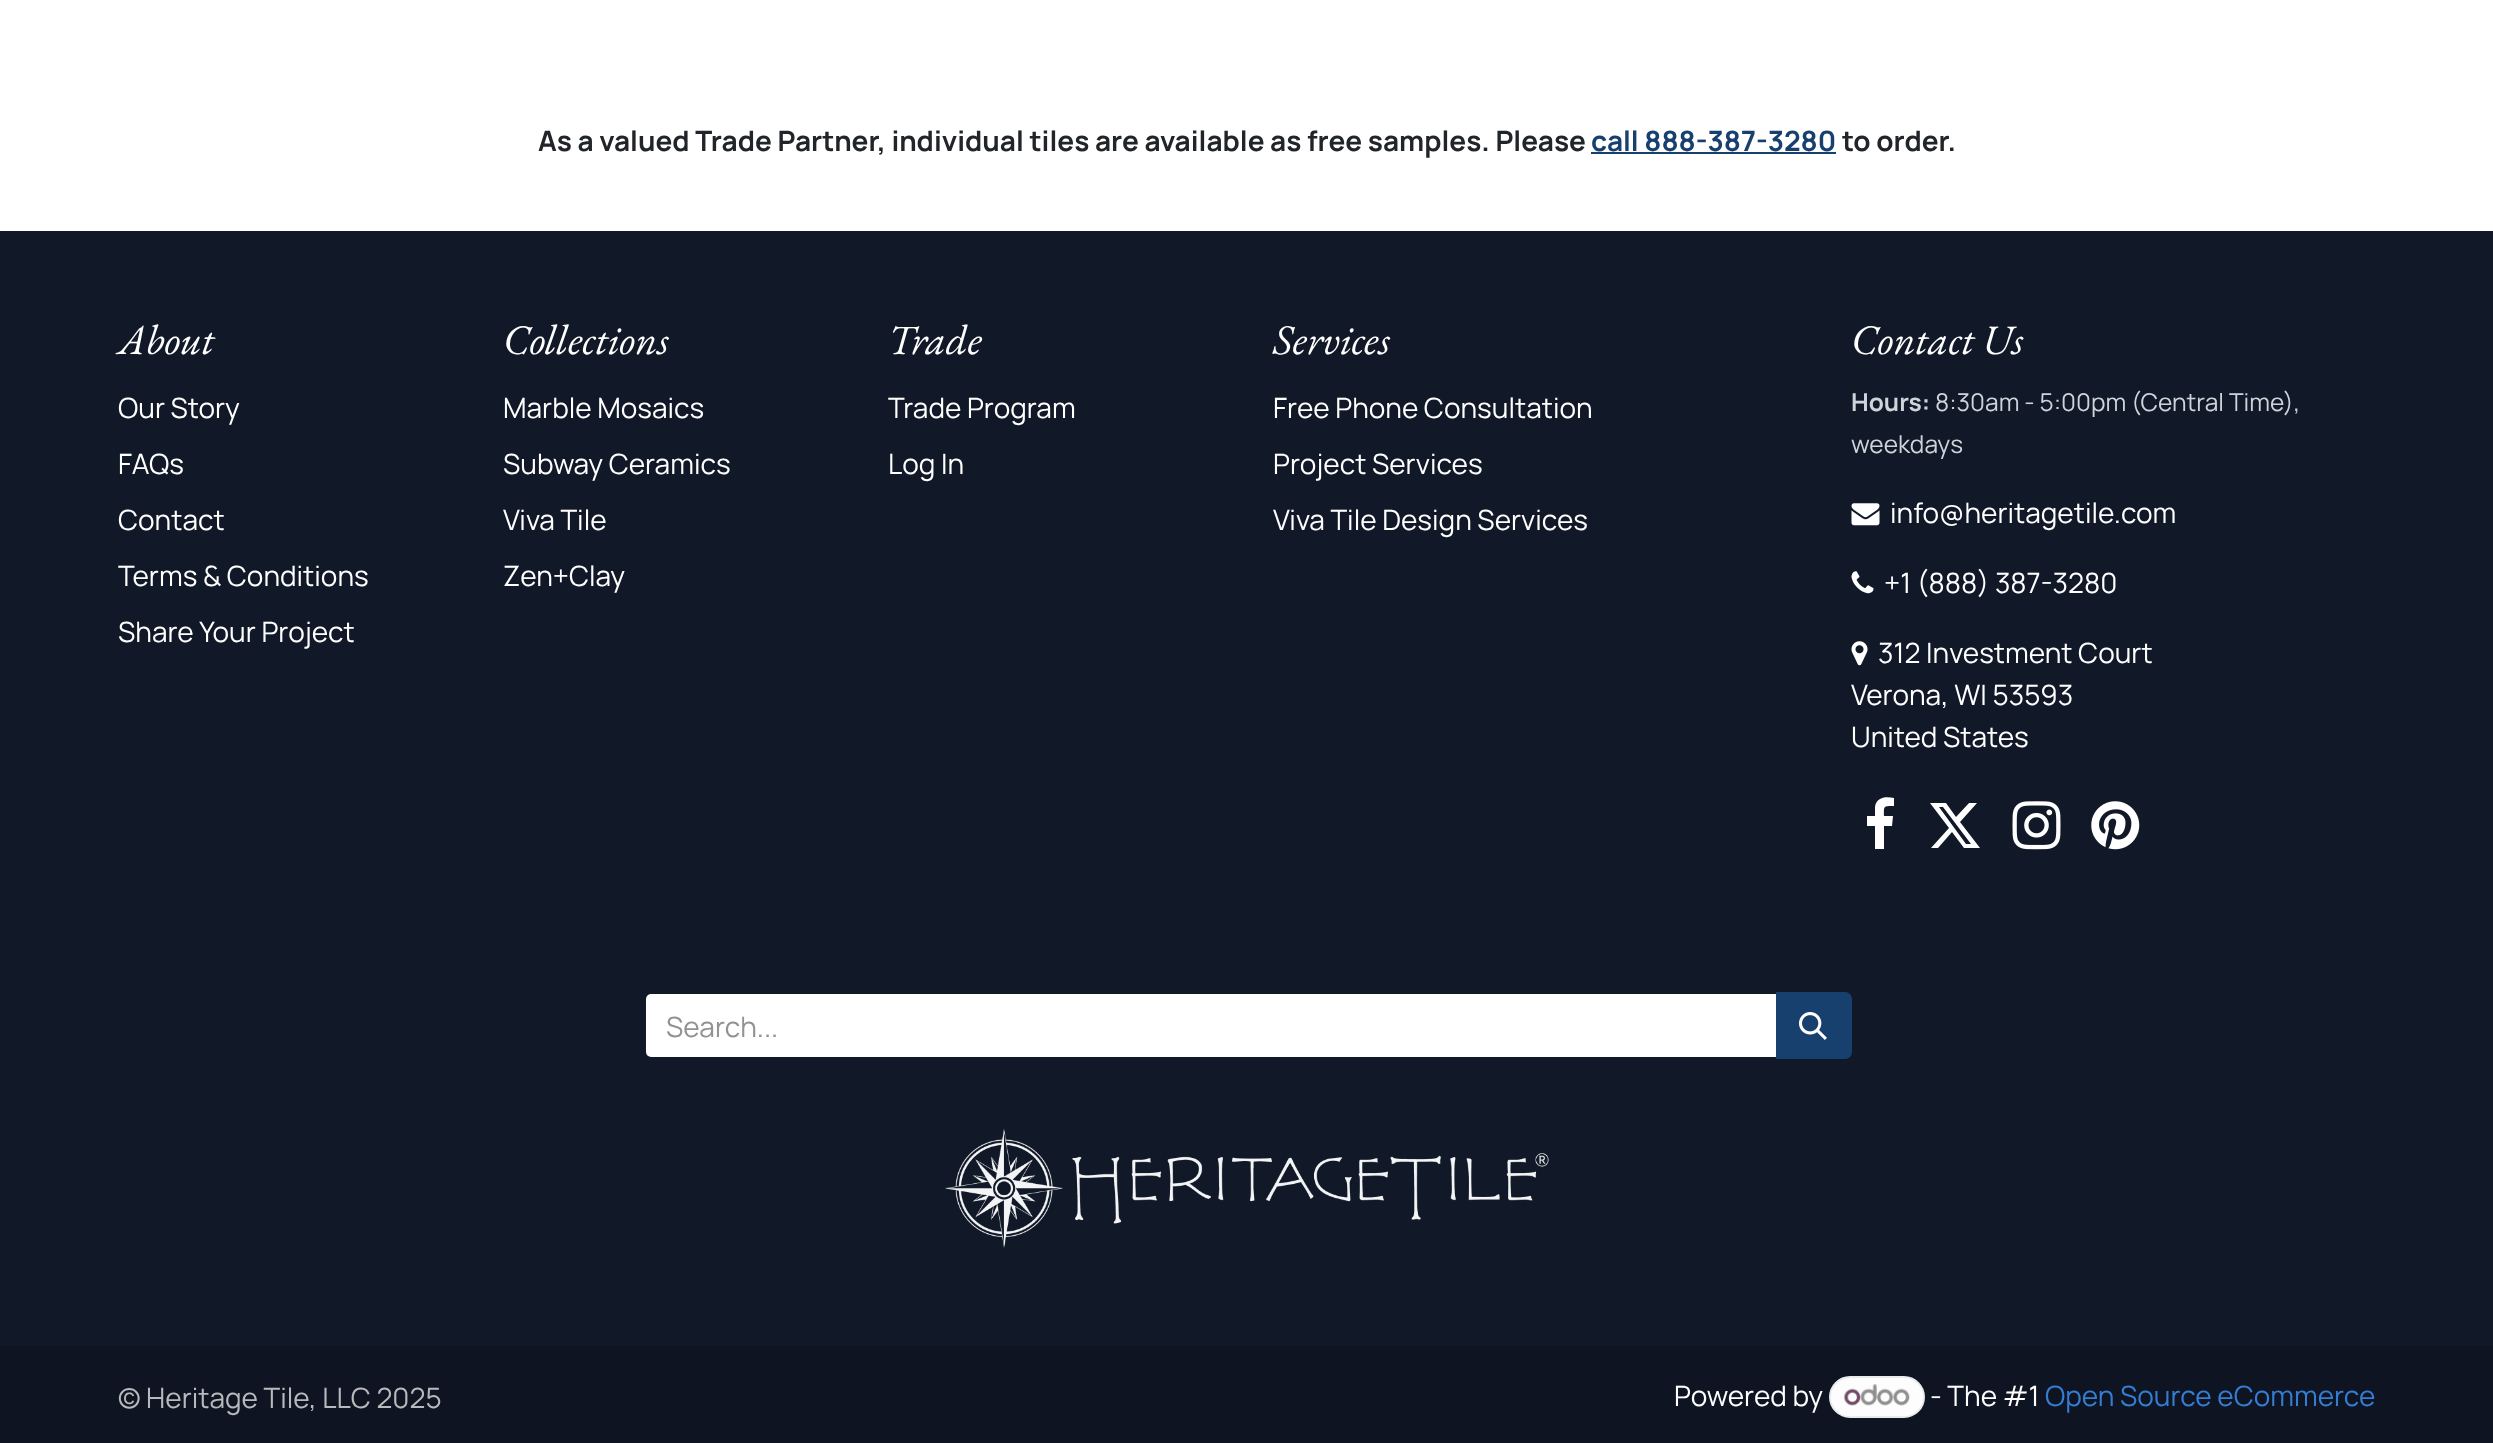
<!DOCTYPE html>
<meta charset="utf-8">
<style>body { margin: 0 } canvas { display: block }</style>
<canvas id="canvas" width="2493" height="1443"></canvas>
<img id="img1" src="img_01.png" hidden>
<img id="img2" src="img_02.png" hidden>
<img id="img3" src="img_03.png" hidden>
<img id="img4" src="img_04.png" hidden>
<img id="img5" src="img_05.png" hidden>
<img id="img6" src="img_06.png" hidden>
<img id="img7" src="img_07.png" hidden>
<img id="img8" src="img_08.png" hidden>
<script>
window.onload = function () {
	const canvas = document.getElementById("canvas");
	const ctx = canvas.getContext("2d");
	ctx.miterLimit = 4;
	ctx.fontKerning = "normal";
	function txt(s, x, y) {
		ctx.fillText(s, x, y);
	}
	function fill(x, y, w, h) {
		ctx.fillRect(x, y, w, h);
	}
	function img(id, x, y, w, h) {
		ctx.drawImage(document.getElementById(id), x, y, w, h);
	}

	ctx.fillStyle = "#FFFFFF";
	fill(0, 0, 2493, 1443);
	ctx.fillStyle = "#18406F";
	fill(1591, 152, 245, 2);
	ctx.fillStyle = "#111827";
	fill(0, 231, 2493, 1115);
	img("img1", 1851, 503, 29, 23);
	img("img2", 1851, 571, 23, 23);
	img("img3", 1851, 641, 17, 25);
	ctx.fillStyle = "#FFFFFF";
	ctx.beginPath();
	ctx.moveTo(1894, 798);
	ctx.lineTo(1894, 806);
	ctx.bezierCurveTo(1883, 806, 1884, 806, 1884, 816);
	ctx.lineTo(1893, 816);
	ctx.lineTo(1892, 826);
	ctx.lineTo(1884, 826);
	ctx.lineTo(1884, 849);
	ctx.lineTo(1875, 849);
	ctx.lineTo(1875, 826);
	ctx.lineTo(1867, 826);
	ctx.lineTo(1867, 816);
	ctx.lineTo(1875, 816);
	ctx.lineTo(1875, 807);
	ctx.bezierCurveTo(1876, 797, 1886, 796, 1894, 798);
	ctx.closePath();
	ctx.fill();
	ctx.beginPath();
	ctx.moveTo(1969, 803);
	ctx.lineTo(1977, 803);
	ctx.lineTo(1960, 822);
	ctx.lineTo(1980, 848);
	ctx.lineTo(1964, 848);
	ctx.lineTo(1952, 832);
	ctx.lineTo(1938, 848);
	ctx.lineTo(1931, 848);
	ctx.lineTo(1949, 828);
	ctx.lineTo(1930, 803);
	ctx.lineTo(1946, 803);
	ctx.lineTo(1956, 817);
	ctx.closePath();
	ctx.moveTo(1966, 844);
	ctx.lineTo(1971, 844);
	ctx.lineTo(1943, 807);
	ctx.lineTo(1939, 807);
	ctx.closePath();
	ctx.fill();
	img("img4", 2012, 801, 49, 49);
	img("img5", 2091, 801, 49, 49);
	ctx.beginPath();
	ctx.roundRect(646, 994, 1130, 63, [5, 0, 0, 5]);
	ctx.fill();
	ctx.beginPath();
	ctx.roundRect(645, 993, 1132, 65, [6, 0, 0, 6]);
	ctx.strokeStyle = "rgba(33, 37, 41, 0.15)";
	ctx.lineWidth = 2;
	ctx.stroke();
	ctx.fillStyle = "#18406F";
	ctx.beginPath();
	ctx.roundRect(1777, 993, 74, 65, [0, 6, 6, 0]);
	ctx.fill();
	ctx.strokeStyle = "#18406F";
	ctx.stroke();
	img("img6", 1799, 1012, 28, 28);
	img("img7", 945, 1129, 604, 119);
	ctx.fillStyle = "#0E1421";
	fill(0, 1346, 2493, 97);
	ctx.fillStyle = "#FDFDFD";
	ctx.beginPath();
	ctx.roundRect(1830, 1377, 94, 40, 20);
	ctx.fill();
	ctx.strokeStyle = "#E9ECEF";
	ctx.stroke();
	img("img8", 1844, 1384, 66, 22);
	ctx.font = "bold 28px Manrope";
	ctx.fillStyle = "#212529";
	txt("As a valued Trade Partner, individual tiles are available as free samples. Please", 538, 151);
	ctx.fillStyle = "#18406F";
	txt("call 888-387-3280", 1591, 151);
	ctx.fillStyle = "#212529";
	txt("to order.", 1842, 151);
	ctx.font = "italic 42px EB Garamond";
	ctx.fillStyle = "#FFFFFF";
	txt("About", 118, 354);
	ctx.font = "28px Manrope";
	txt("Our Story", 118, 418);
	txt("FAQs", 118, 474);
	txt("Contact", 118, 530);
	txt("Terms & Conditions", 118, 586);
	txt("Share Your Project", 118, 642);
	ctx.font = "italic 42px EB Garamond";
	txt("Collections", 503, 354);
	ctx.font = "28px Manrope";
	txt("Marble Mosaics", 503, 418);
	txt("Subway Ceramics", 503, 474);
	txt("Viva Tile", 503, 530);
	txt("Zen+Clay", 503, 586);
	ctx.font = "italic 42px EB Garamond";
	txt("Trade", 888, 354);
	ctx.font = "28px Manrope";
	txt("Trade Program", 888, 418);
	txt("Log In", 888, 474);
	ctx.font = "italic 42px EB Garamond";
	txt("Services", 1273, 354);
	ctx.font = "28px Manrope";
	txt("Free Phone Consultation", 1273, 418);
	txt("Project Services", 1273, 474);
	txt("Viva Tile Design Services", 1273, 530);
	ctx.font = "italic 42px EB Garamond";
	txt("Contact Us", 1851, 354);
	ctx.font = "bold 24.5px Manrope";
	ctx.fillStyle = "#CED4DA";
	txt("Hours:", 1851, 411);
	ctx.font = "24.5px Manrope";
	txt("8:30am - 5:00pm (Central Time),", 1935, 411);
	txt("weekdays", 1851, 453);
	ctx.font = "28px Manrope";
	ctx.fillStyle = "#FFFFFF";
	txt("info@heritagetile.com", 1890, 523);
	txt("+1 (888) 387-3280", 1884, 593);
	txt("312 Investment Court", 1878, 663);
	txt("Verona, WI 53593", 1851, 705);
	txt("United States", 1851, 747);
	ctx.fillStyle = "#909294";
	txt("Search...", 666, 1037);
	ctx.fillStyle = "#B7B9BC";
	txt("© Heritage Tile, LLC 2025", 118, 1408);
	ctx.fillStyle = "#FFFFFF";
	txt("Powered by", 1674, 1406);
	txt("- The #1", 1930, 1406);
	ctx.fillStyle = "#347DD3";
	txt("Open Source eCommerce", 2045, 1406);
};
</script>
